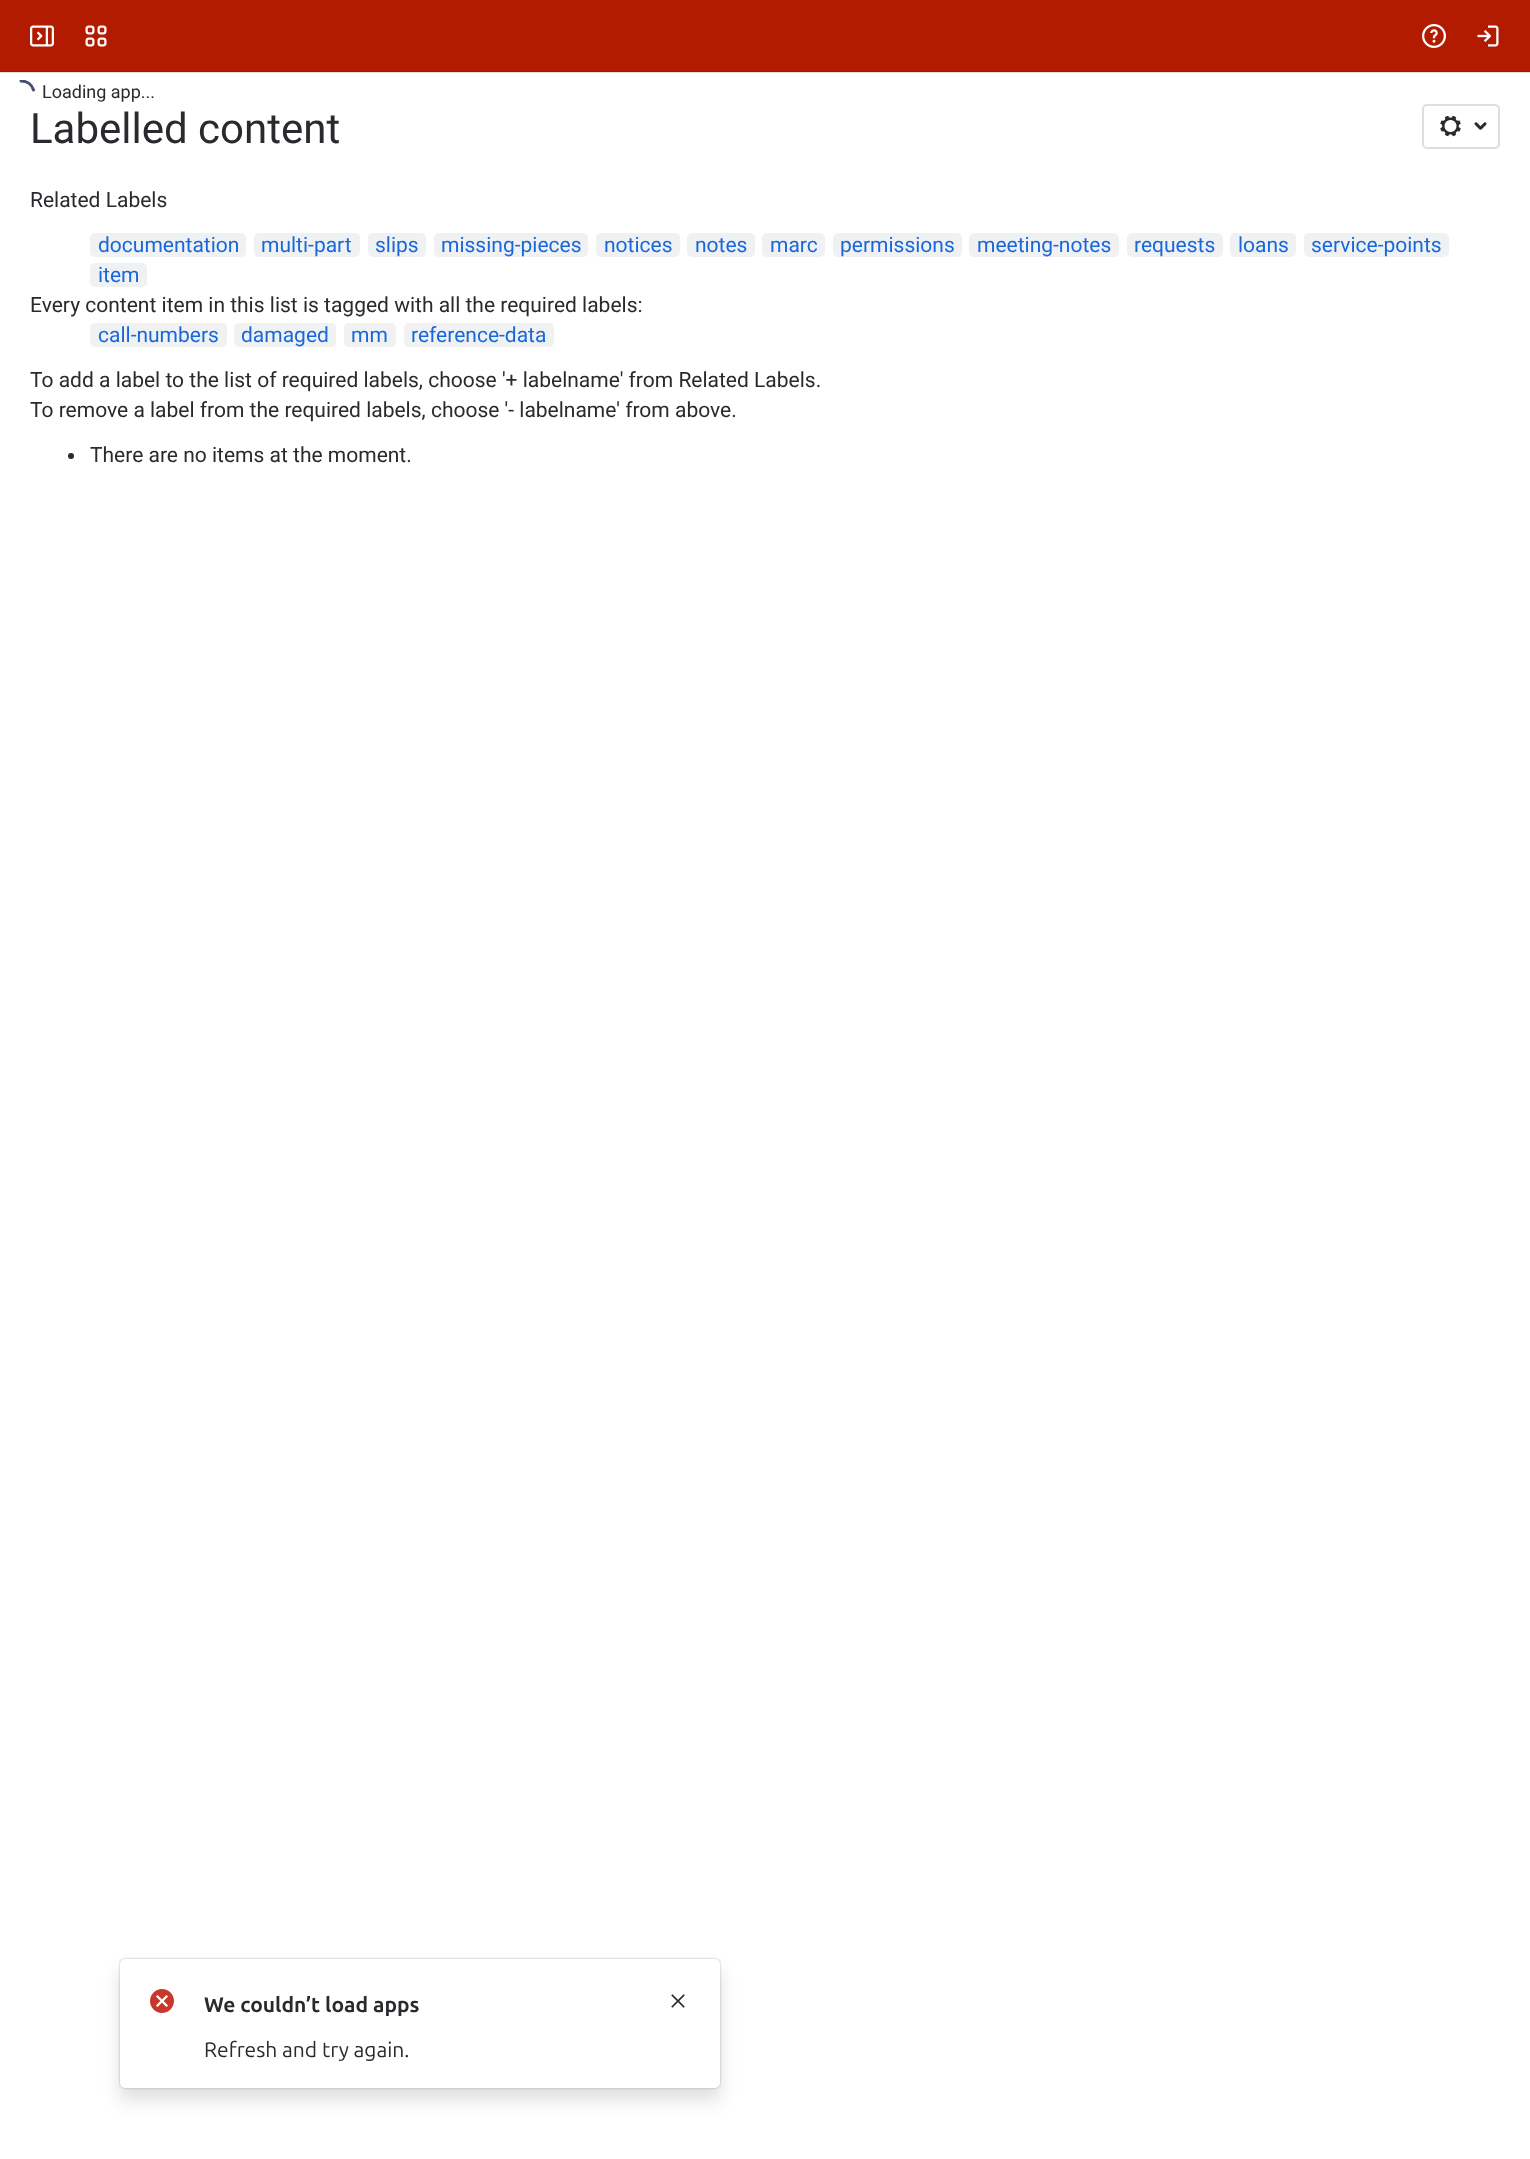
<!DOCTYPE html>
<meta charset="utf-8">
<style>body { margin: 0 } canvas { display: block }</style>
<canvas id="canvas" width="1530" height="2159"></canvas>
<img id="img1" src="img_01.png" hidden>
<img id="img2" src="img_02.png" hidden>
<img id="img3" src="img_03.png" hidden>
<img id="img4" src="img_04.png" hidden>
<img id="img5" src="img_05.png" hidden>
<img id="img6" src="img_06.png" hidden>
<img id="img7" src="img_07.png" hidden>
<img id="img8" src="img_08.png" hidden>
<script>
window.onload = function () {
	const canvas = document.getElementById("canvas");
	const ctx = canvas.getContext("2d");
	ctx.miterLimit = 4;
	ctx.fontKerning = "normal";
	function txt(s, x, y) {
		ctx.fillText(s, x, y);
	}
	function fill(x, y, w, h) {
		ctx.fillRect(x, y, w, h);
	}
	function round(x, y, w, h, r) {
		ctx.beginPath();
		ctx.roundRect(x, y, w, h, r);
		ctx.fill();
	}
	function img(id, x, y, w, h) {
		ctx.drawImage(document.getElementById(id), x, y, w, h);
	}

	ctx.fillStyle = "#FFFFFF";
	fill(0, 0, 1530, 2159);
	ctx.fillStyle = "#DDDEDD";
	fill(0, 72, 1530, 1);
	ctx.fillStyle = "#B31B00";
	fill(0, 0, 1530, 71);
	ctx.fillStyle = "#9B1A02";
	fill(0, 71, 1530, 1);
	img("img1", 30, 25, 24, 22);
	img("img2", 85, 25, 22, 22);
	img("img3", 1422, 24, 24, 24);
	img("img4", 1477, 25, 22, 22);
	ctx.save();
	ctx.beginPath();
	ctx.rect(6, 80, 30, 30);
	ctx.clip();
	ctx.beginPath();
	ctx.moveTo(21, 81);
	ctx.bezierCurveTo(27, 81, 32, 84.5, 33.5, 90);
	ctx.strokeStyle = "#42526E";
	ctx.lineWidth = 3;
	ctx.lineCap = "round";
	ctx.stroke();
	ctx.restore();
	ctx.beginPath();
	ctx.roundRect(1423, 105, 76, 43, 4);
	ctx.strokeStyle = "#DDDEDD";
	ctx.lineWidth = 2;
	ctx.stroke();
	img("img5", 1440, 115, 21, 22);
	img("img6", 1474, 122, 13, 8);
	ctx.fillStyle = "#F0F1F2";
	round(90, 233, 156, 24, 5);
	round(254, 233, 106, 24, 5);
	round(368, 233, 58, 24, 5);
	round(434, 233, 154, 24, 5);
	round(596, 233, 84, 24, 5);
	round(687, 233, 68, 24, 5);
	round(762, 233, 63, 24, 5);
	round(833, 233, 129, 24, 5);
	round(969, 233, 150, 24, 5);
	round(1127, 233, 96, 24, 5);
	round(1230, 233, 66, 24, 5);
	round(1304, 233, 145, 24, 5);
	round(90, 263, 57, 24, 5);
	round(90, 323, 137, 24, 5);
	round(234, 323, 102, 24, 5);
	round(344, 323, 52, 24, 5);
	round(404, 323, 150, 24, 5);
	ctx.fillStyle = "#292A2E";
	ctx.beginPath();
	ctx.arc(71, 456, 3, 0, Math.PI * 2);
	ctx.fill();
	ctx.fillStyle = "rgba(30, 31, 33, 0.31)";
	ctx.filter = "blur(1px)";
	ctx.beginPath();
	ctx.roundRect(120, 1959, 600, 129, 5);
	ctx.fill();
	ctx.filter = "none";
	ctx.fillStyle = "rgba(30, 31, 33, 0.15)";
	ctx.filter = "blur(9px)";
	ctx.beginPath();
	ctx.roundRect(120, 1971, 600, 129, 5);
	ctx.fill();
	ctx.filter = "none";
	ctx.fillStyle = "#FFFFFF";
	round(120, 1959, 600, 129, 5);
	img("img7", 150, 1989, 24, 24);
	img("img8", 671, 1994, 14, 14);
	ctx.font = "18px Roboto";
	ctx.fillStyle = "#292A2E";
	txt("Loading app...", 42, 98);
	ctx.font = "42px Roboto";
	txt("Labelled content", 30, 143);
	ctx.font = "21px Roboto";
	txt("Related Labels", 30, 207);
	ctx.fillStyle = "#1868DB";
	txt("documentation", 98, 252);
	txt("multi-part", 261, 252);
	txt("slips", 375, 252);
	txt("missing-pieces", 441, 252);
	txt("notices", 604, 252);
	txt("notes", 695, 252);
	txt("marc", 770, 252);
	txt("permissions", 840, 252);
	txt("meeting-notes", 977, 252);
	txt("requests", 1134, 252);
	txt("loans", 1238, 252);
	txt("service-points", 1311, 252);
	txt("item", 98, 282);
	ctx.fillStyle = "#292A2E";
	txt("Every content item in this list is tagged with all the required labels:", 30, 312);
	ctx.fillStyle = "#1868DB";
	txt("call-numbers", 98, 342);
	txt("damaged", 241, 342);
	txt("mm", 351, 342);
	txt("reference-data", 411, 342);
	ctx.fillStyle = "#292A2E";
	txt("To add a label to the list of required labels, choose '+ labelname' from Related Labels.", 30, 387);
	txt("To remove a label from the required labels, choose '- labelname' from above.", 30, 417);
	txt("There are no items at the moment.", 90, 462);
	ctx.font = "bold 21px Ubuntu";
	txt("We couldn’t load apps", 204, 2012);
	ctx.font = "21px Ubuntu";
	txt("Refresh and try again.", 204, 2057);
};
</script>
